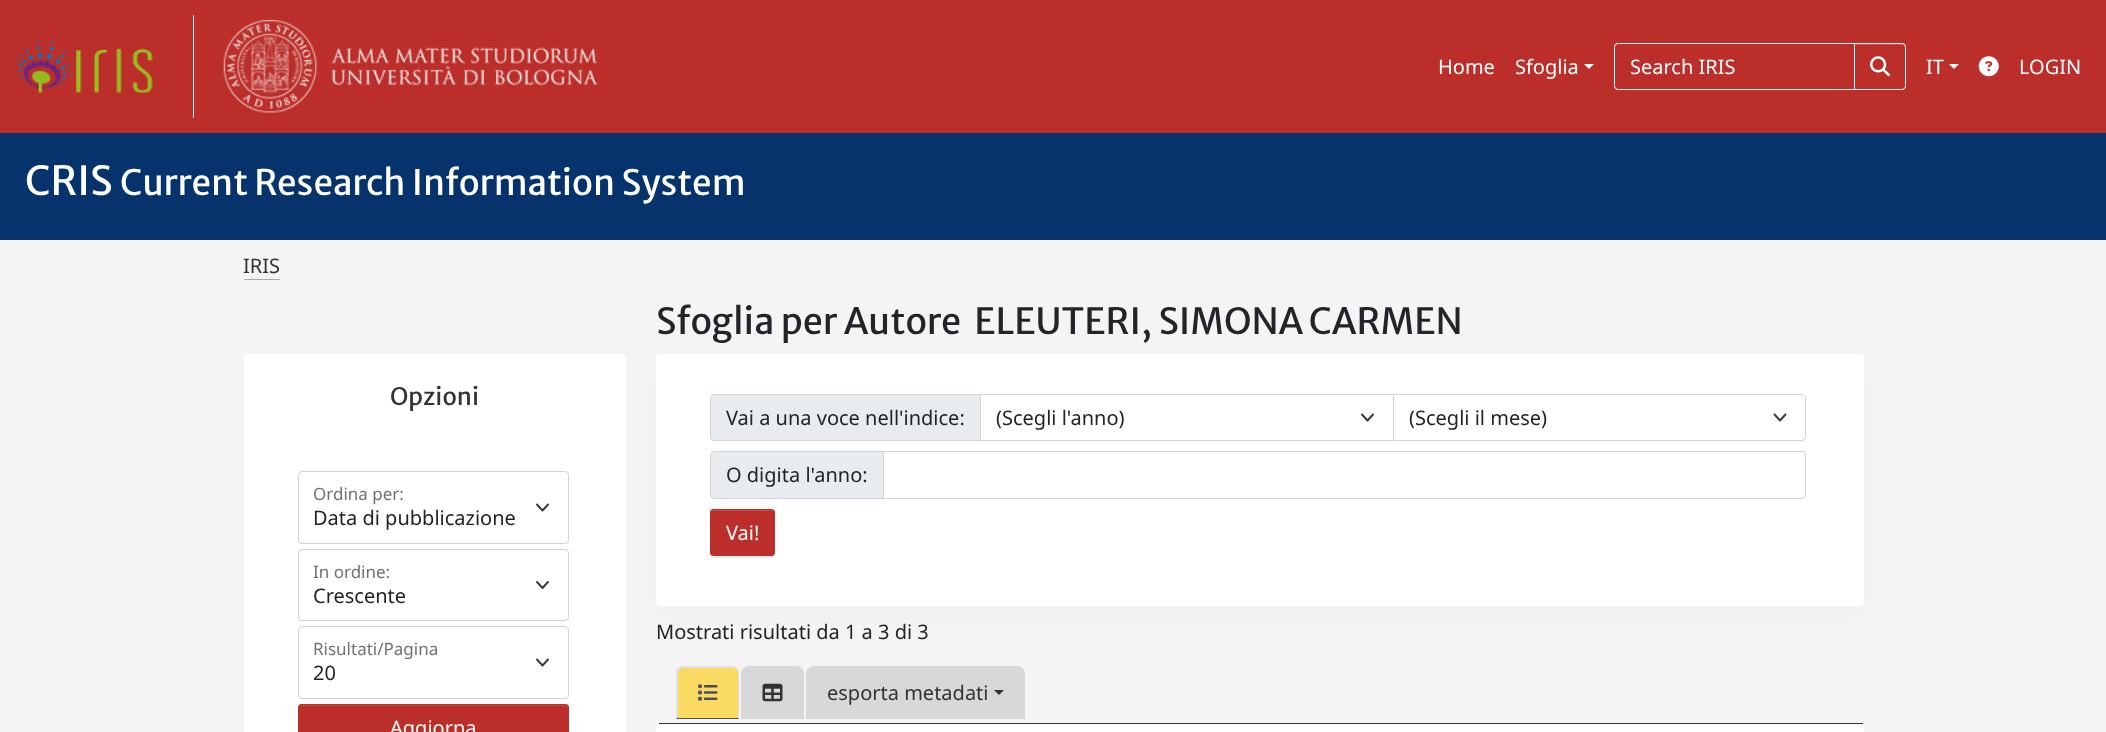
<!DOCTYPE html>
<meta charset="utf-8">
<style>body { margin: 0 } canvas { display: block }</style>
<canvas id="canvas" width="2106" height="732"></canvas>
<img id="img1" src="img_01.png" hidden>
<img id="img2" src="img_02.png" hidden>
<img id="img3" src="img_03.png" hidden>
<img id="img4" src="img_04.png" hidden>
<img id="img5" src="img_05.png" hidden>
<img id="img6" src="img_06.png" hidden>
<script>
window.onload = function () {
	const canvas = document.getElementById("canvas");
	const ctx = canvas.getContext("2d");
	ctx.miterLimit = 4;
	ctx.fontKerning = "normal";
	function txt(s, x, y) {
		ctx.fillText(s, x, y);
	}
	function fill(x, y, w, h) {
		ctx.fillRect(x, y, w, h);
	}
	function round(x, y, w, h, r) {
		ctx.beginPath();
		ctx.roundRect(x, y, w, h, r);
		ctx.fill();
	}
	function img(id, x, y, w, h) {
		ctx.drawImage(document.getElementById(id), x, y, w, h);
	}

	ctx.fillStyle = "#F4F4F4";
	fill(0, 0, 2106, 732);
	ctx.fillStyle = "#BB2E29";
	fill(0, 0, 2106, 133);
	img("img1", 15, 40, 138, 53);
	ctx.fillStyle = "#FFFFFF";
	fill(193, 15, 1, 103);
	img("img2", 223, 20, 375, 93);
	ctx.beginPath();
	ctx.moveTo(1584, 64);
	ctx.lineTo(1594, 64);
	ctx.lineTo(1589, 69);
	ctx.closePath();
	ctx.fill();
	ctx.beginPath();
	ctx.roundRect(1614.5, 43.5, 240, 46, [3.5, 0, 0, 3.5]);
	ctx.strokeStyle = "#FFFFFF";
	ctx.stroke();
	ctx.fillStyle = "rgba(0, 0, 0, 0.07)";
	ctx.filter = "blur(0.5px)";
	ctx.beginPath();
	ctx.roundRect(1854, 44, 52, 47, 4);
	ctx.fill();
	ctx.filter = "none";
	ctx.fillStyle = "#BB2E29";
	ctx.beginPath();
	ctx.roundRect(1854, 43, 52, 47, [0, 4, 4, 0]);
	ctx.fill();
	ctx.fillStyle = "#C54D49";
	ctx.beginPath();
	ctx.moveTo(1855, 45);
	ctx.lineTo(1902, 45);
	ctx.bezierCurveTo(1904, 45, 1905, 46, 1905, 48);
	ctx.lineTo(1905, 46);
	ctx.bezierCurveTo(1905, 45, 1904, 44, 1902, 44);
	ctx.lineTo(1855, 44);
	ctx.closePath();
	ctx.fill();
	ctx.beginPath();
	ctx.roundRect(1854.5, 43.5, 51, 46, [0, 3.5, 3.5, 0]);
	ctx.stroke();
	img("img3", 1870, 56, 20, 21);
	ctx.fillStyle = "#FFFFFF";
	ctx.beginPath();
	ctx.moveTo(1949, 64);
	ctx.lineTo(1959, 64);
	ctx.lineTo(1954, 69);
	ctx.closePath();
	ctx.fill();
	img("img4", 1978, 56, 21, 21);
	ctx.fillStyle = "#06336B";
	fill(0, 133, 2106, 107);
	ctx.fillStyle = "#AAAAAA";
	fill(244, 279, 36, 1);
	ctx.fillStyle = "#FFFFFF";
	round(244, 354, 382, 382, 4);
	ctx.beginPath();
	ctx.moveTo(537, 504.5);
	ctx.lineTo(542.5, 510.5);
	ctx.lineTo(548, 504.5);
	ctx.strokeStyle = "#343A40";
	ctx.lineWidth = 1.9;
	ctx.lineCap = "round";
	ctx.lineJoin = "round";
	ctx.stroke();
	ctx.beginPath();
	ctx.roundRect(298.5, 471.5, 270, 72, 3.5);
	ctx.strokeStyle = "#CED4DA";
	ctx.lineWidth = 1;
	ctx.lineJoin = "miter";
	ctx.stroke();
	ctx.beginPath();
	ctx.moveTo(537, 582);
	ctx.lineTo(542.5, 588);
	ctx.lineTo(548, 582);
	ctx.strokeStyle = "#343A40";
	ctx.lineWidth = 1.9;
	ctx.lineJoin = "round";
	ctx.stroke();
	ctx.beginPath();
	ctx.roundRect(298.5, 549.5, 270, 71, 3.5);
	ctx.strokeStyle = "#CED4DA";
	ctx.lineWidth = 1;
	ctx.lineJoin = "miter";
	ctx.stroke();
	ctx.beginPath();
	ctx.moveTo(537, 659.5);
	ctx.lineTo(542.5, 665.5);
	ctx.lineTo(548, 659.5);
	ctx.strokeStyle = "#343A40";
	ctx.lineWidth = 1.9;
	ctx.lineJoin = "round";
	ctx.stroke();
	ctx.beginPath();
	ctx.roundRect(298.5, 626.5, 270, 72, 3.5);
	ctx.strokeStyle = "#CED4DA";
	ctx.lineWidth = 1;
	ctx.lineJoin = "miter";
	ctx.stroke();
	ctx.fillStyle = "#BB2E29";
	round(298, 704, 271, 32, 4);
	ctx.fillStyle = "#C54D49";
	ctx.beginPath();
	ctx.moveTo(301, 706);
	ctx.lineTo(565, 706);
	ctx.bezierCurveTo(566, 706, 568, 707, 568, 709);
	ctx.lineTo(568, 708);
	ctx.bezierCurveTo(568, 706, 567, 705, 566, 705);
	ctx.lineTo(302, 705);
	ctx.bezierCurveTo(300, 705, 299, 706, 299, 708);
	ctx.lineTo(299, 709);
	ctx.bezierCurveTo(299, 707, 300, 706, 301, 706);
	ctx.closePath();
	ctx.fill();
	ctx.beginPath();
	ctx.roundRect(298.5, 704.5, 270, 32, 3.5);
	ctx.strokeStyle = "#BB2E29";
	ctx.stroke();
	ctx.fillStyle = "#EEEEEE";
	ctx.filter = "blur(9.5px)";
	ctx.beginPath();
	ctx.rect(660, 370, 1200, 245);
	ctx.fill();
	ctx.filter = "none";
	ctx.fillStyle = "#FFFFFF";
	round(656, 354, 1208, 252, 4);
	ctx.fillStyle = "#E9ECEF";
	ctx.beginPath();
	ctx.roundRect(710.5, 394.5, 270, 46, [3.5, 0, 0, 3.5]);
	ctx.fill();
	ctx.strokeStyle = "#CED4DA";
	ctx.stroke();
	ctx.beginPath();
	ctx.moveTo(1362, 414.5);
	ctx.lineTo(1367.5, 420.5);
	ctx.lineTo(1373, 414.5);
	ctx.strokeStyle = "#343A40";
	ctx.lineWidth = 1.9;
	ctx.lineJoin = "round";
	ctx.stroke();
	ctx.strokeStyle = "#CED4DA";
	ctx.lineWidth = 1;
	ctx.lineJoin = "miter";
	ctx.strokeRect(980.5, 394.5, 413, 46);
	ctx.fillStyle = "#FFFFFF";
	ctx.beginPath();
	ctx.roundRect(1393, 394, 413, 47, [0, 4, 4, 0]);
	ctx.fill();
	ctx.beginPath();
	ctx.moveTo(1774.5, 414.5);
	ctx.lineTo(1780, 420.5);
	ctx.lineTo(1785.5, 414.5);
	ctx.strokeStyle = "#343A40";
	ctx.lineWidth = 1.9;
	ctx.lineJoin = "round";
	ctx.stroke();
	ctx.beginPath();
	ctx.roundRect(1393.5, 394.5, 412, 46, [0, 3.5, 3.5, 0]);
	ctx.strokeStyle = "#CED4DA";
	ctx.lineWidth = 1;
	ctx.lineJoin = "miter";
	ctx.stroke();
	ctx.fillStyle = "#E9ECEF";
	ctx.beginPath();
	ctx.roundRect(710.5, 451.5, 173, 47, [3.5, 0, 0, 3.5]);
	ctx.fill();
	ctx.stroke();
	ctx.beginPath();
	ctx.roundRect(883.5, 451.5, 922, 47, [0, 3.5, 3.5, 0]);
	ctx.stroke();
	ctx.fillStyle = "rgba(0, 0, 0, 0.07)";
	ctx.filter = "blur(0.5px)";
	ctx.beginPath();
	ctx.roundRect(710, 510, 65, 48, 4);
	ctx.fill();
	ctx.filter = "none";
	ctx.fillStyle = "#BB2E29";
	round(710, 509, 65, 47, 4);
	ctx.fillStyle = "#C54D49";
	ctx.beginPath();
	ctx.moveTo(714, 511);
	ctx.lineTo(771, 511);
	ctx.bezierCurveTo(773, 511, 774, 512, 774, 514);
	ctx.bezierCurveTo(774, 507, 767, 510, 762, 510);
	ctx.lineTo(723, 510);
	ctx.bezierCurveTo(718, 510, 711, 507, 711, 514);
	ctx.bezierCurveTo(711, 512, 712, 511, 714, 511);
	ctx.closePath();
	ctx.fill();
	ctx.beginPath();
	ctx.roundRect(710.5, 509.5, 64, 46, 3.5);
	ctx.strokeStyle = "#BB2E29";
	ctx.stroke();
	ctx.fillStyle = "#FBDA64";
	ctx.beginPath();
	ctx.roundRect(676, 666, 63, 53, [8, 8, 0, 0]);
	ctx.fill();
	ctx.fillStyle = "#DEE2E6";
	ctx.beginPath();
	ctx.moveTo(684, 668);
	ctx.bezierCurveTo(682, 668, 680, 668, 680, 670);
	ctx.lineTo(678, 668);
	ctx.lineTo(682, 666);
	ctx.lineTo(733, 666);
	ctx.lineTo(736, 668);
	ctx.lineTo(736, 669);
	ctx.bezierCurveTo(734, 668, 733, 668, 731, 668);
	ctx.closePath();
	ctx.moveTo(736, 668);
	ctx.lineTo(739, 672);
	ctx.lineTo(739, 719);
	ctx.lineTo(738, 718);
	ctx.lineTo(738, 674);
	ctx.bezierCurveTo(738, 672, 737, 670, 736, 669);
	ctx.closePath();
	ctx.fill();
	ctx.fillStyle = "#495057";
	ctx.beginPath();
	ctx.moveTo(739, 719);
	ctx.lineTo(738, 718);
	ctx.lineTo(678, 718);
	ctx.lineTo(678, 717);
	ctx.lineTo(676, 719);
	ctx.closePath();
	ctx.fill();
	ctx.fillStyle = "#DEE2E6";
	ctx.beginPath();
	ctx.moveTo(676, 719);
	ctx.lineTo(676, 672);
	ctx.lineTo(678, 668);
	ctx.lineTo(680, 670);
	ctx.bezierCurveTo(678, 670, 678, 672, 678, 674);
	ctx.lineTo(678, 717);
	ctx.closePath();
	ctx.fill();
	img("img5", 698, 684, 20, 17);
	ctx.fillStyle = "#D8D8D8";
	ctx.beginPath();
	ctx.roundRect(741, 666, 63, 53, [8, 8, 0, 0]);
	ctx.fill();
	img("img6", 762, 683, 21, 19);
	ctx.beginPath();
	ctx.roundRect(806, 666, 219, 53, [8, 8, 0, 0]);
	ctx.fill();
	ctx.fillStyle = "#333333";
	ctx.beginPath();
	ctx.moveTo(994, 690);
	ctx.lineTo(1004, 690);
	ctx.lineTo(999, 695);
	ctx.closePath();
	ctx.fill();
	ctx.fillStyle = "#FFFFFF";
	round(656, 723, 1208, 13, 4);
	ctx.fillStyle = "#333333";
	fill(659, 723, 1204, 1);
	ctx.font = "20px Noto Sans";
	ctx.fillStyle = "#FFFFFF";
	txt("Home", 1438, 74);
	txt("Sfoglia", 1515, 74);
	txt("Search IRIS", 1630, 74);
	txt("IT", 1926, 74);
	txt("LOGIN", 2019, 74);
	ctx.font = "40px Merriweather Sans";
	txt("CRIS", 25, 195);
	ctx.font = "35px Merriweather Sans";
	txt("Current Research Information System", 120, 195);
	ctx.font = "20px Noto Sans";
	ctx.fillStyle = "#333333";
	txt("IRIS", 243, 273);
	ctx.font = "36px Merriweather Sans";
	ctx.fillStyle = "#212529";
	txt("Sfoglia per Autore  ELEUTERI, SIMONA CARMEN", 656, 334);
	ctx.font = "24px Merriweather Sans";
	ctx.fillStyle = "#333333";
	txt("Opzioni", 390, 405);
	ctx.font = "17px Noto Sans";
	ctx.fillStyle = "#6F7174";
	txt("Ordina per:", 313, 500);
	ctx.font = "20px Noto Sans";
	ctx.fillStyle = "#212529";
	txt("Data di pubblicazione", 313, 525);
	ctx.font = "17px Noto Sans";
	ctx.fillStyle = "#6F7174";
	txt("In ordine:", 313, 578);
	ctx.font = "20px Noto Sans";
	ctx.fillStyle = "#212529";
	txt("Crescente", 313, 603);
	ctx.font = "17px Noto Sans";
	ctx.fillStyle = "#6F7174";
	txt("Risultati/Pagina", 313, 655);
	ctx.font = "20px Noto Sans";
	ctx.fillStyle = "#212529";
	txt("20", 313, 680);
	ctx.fillStyle = "#FFFFFF";
	txt("Aggiorna", 390, 735);
	ctx.fillStyle = "#212529";
	txt("Vai a una voce nell'indice:", 726, 425);
	txt("(Scegli l'anno)", 996, 425);
	txt("(Scegli il mese)", 1409, 425);
	txt("O digita l'anno:", 726, 482);
	ctx.fillStyle = "#FFFFFF";
	txt("Vai!", 726, 540);
	ctx.fillStyle = "#212529";
	txt("Mostrati risultati da 1 a 3 di 3", 656, 639);
	ctx.fillStyle = "#333333";
	txt("esporta metadati", 827, 700);
};
</script>
